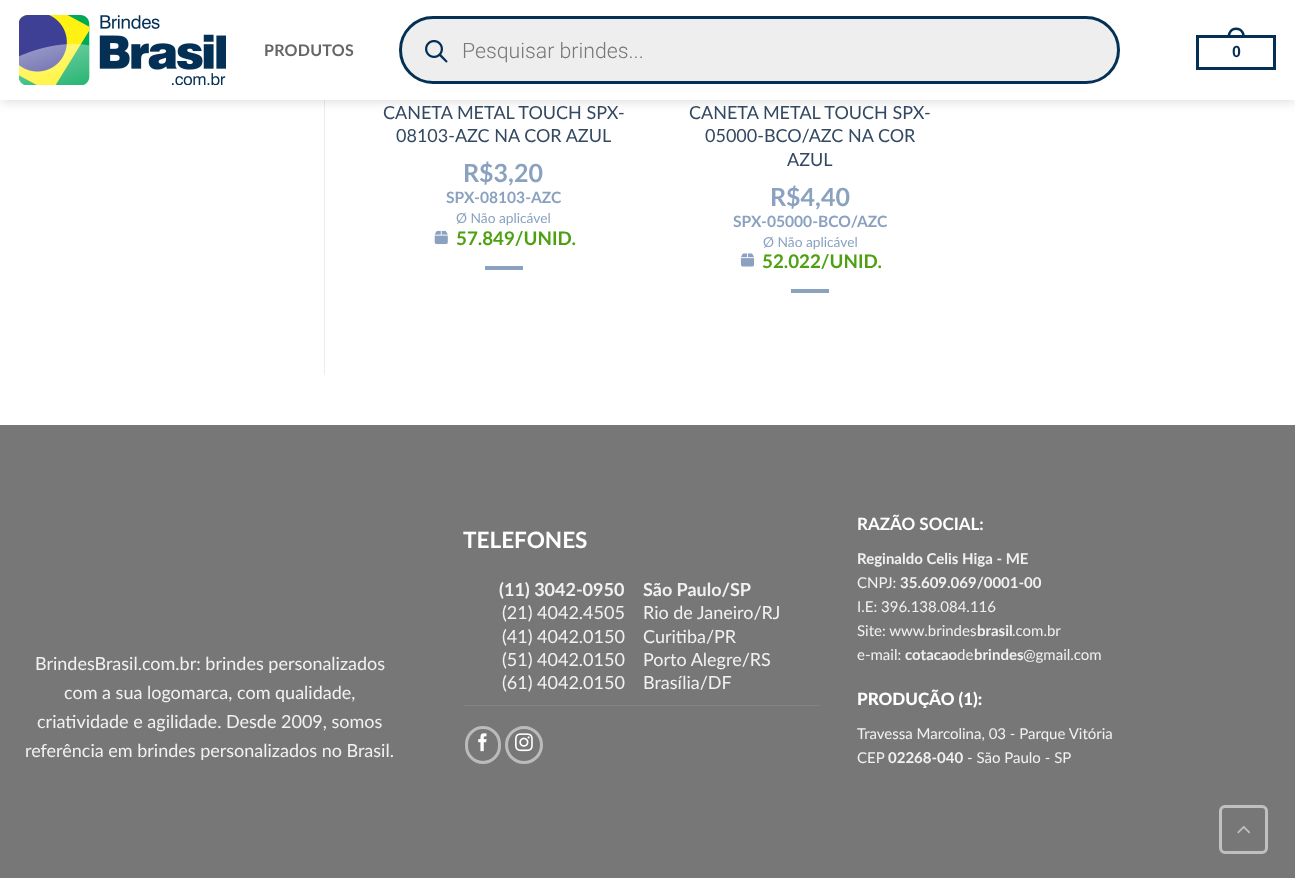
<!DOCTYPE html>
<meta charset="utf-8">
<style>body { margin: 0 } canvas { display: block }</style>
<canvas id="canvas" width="1295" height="878"></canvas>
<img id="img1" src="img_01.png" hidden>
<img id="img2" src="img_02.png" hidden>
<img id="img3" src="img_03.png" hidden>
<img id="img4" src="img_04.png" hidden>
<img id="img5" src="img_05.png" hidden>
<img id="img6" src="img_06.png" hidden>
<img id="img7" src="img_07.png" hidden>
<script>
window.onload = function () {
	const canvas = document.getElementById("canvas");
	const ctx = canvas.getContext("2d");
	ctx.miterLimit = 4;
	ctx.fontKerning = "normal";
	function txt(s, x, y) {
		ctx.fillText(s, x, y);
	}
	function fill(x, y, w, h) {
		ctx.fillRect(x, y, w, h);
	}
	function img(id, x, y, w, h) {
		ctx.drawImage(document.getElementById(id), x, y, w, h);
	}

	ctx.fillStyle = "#FFFFFF";
	fill(0, 0, 1295, 878);
	ctx.fillStyle = "#ECECEC";
	fill(324, 100, 1, 275);
	ctx.fillStyle = "rgba(0, 0, 0, 0.15)";
	ctx.filter = "blur(6px)";
	ctx.beginPath();
	ctx.rect(1, 1, 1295, 100);
	ctx.fill();
	ctx.filter = "none";
	ctx.fillStyle = "#FFFFFF";
	fill(0, 0, 1295, 100);
	img("img1", 19, 15, 207, 70);
	ctx.fillStyle = "#EEEEEE";
	ctx.beginPath();
	ctx.roundRect(400.5, 17.5, 718, 65, 32.5);
	ctx.fill();
	ctx.strokeStyle = "#053056";
	ctx.lineWidth = 3;
	ctx.stroke();
	img("img2", 425, 40, 23, 23);
	ctx.strokeRect(1197.5, 36.5, 77, 32);
	ctx.fillStyle = "#053056";
	ctx.beginPath();
	ctx.moveTo(1236, 27.5);
	ctx.bezierCurveTo(1242, 27.5, 1245, 32, 1245, 37.5);
	ctx.lineTo(1227.5, 37.5);
	ctx.bezierCurveTo(1227.5, 32, 1230.5, 27.5, 1236, 27.5);
	ctx.closePath();
	ctx.moveTo(1236, 30);
	ctx.bezierCurveTo(1240.5, 30, 1242.5, 33.5, 1242.5, 37.5);
	ctx.lineTo(1230, 37.5);
	ctx.bezierCurveTo(1230, 33.5, 1232, 30, 1236, 30);
	ctx.closePath();
	ctx.fill("evenodd");
	img("img3", 434, 230, 14, 15);
	ctx.fillStyle = "#8AA2C0";
	fill(485, 266, 38, 4);
	img("img4", 740, 253, 15, 14);
	fill(791, 289, 38, 4);
	ctx.fillStyle = "#777777";
	fill(0, 425, 1295, 453);
	ctx.fillStyle = "#828282";
	fill(463, 705, 357, 1);
	ctx.beginPath();
	ctx.roundRect(466.5, 727.5, 33, 35, 16.5);
	ctx.strokeStyle = "#BBBBBB";
	ctx.stroke();
	img("img5", 478, 733, 9, 19);
	ctx.beginPath();
	ctx.arc(524, 745, 17.5, 0, Math.PI * 2);
	ctx.stroke();
	img("img6", 515, 733, 18, 19);
	ctx.beginPath();
	ctx.roundRect(1220.5, 806.5, 46, 46, 4.5);
	ctx.strokeStyle = "#C0C0C0";
	ctx.stroke();
	img("img7", 1237, 825, 14, 9);
	ctx.letterSpacing = "0.25px";
	ctx.font = "bold 16px Lato";
	ctx.fillStyle = "#656565";
	txt("PRODUTOS", 264, 56);
	ctx.letterSpacing = "0px";
	ctx.font = "300 21.25px Roboto";
	ctx.fillStyle = "#777777";
	txt("Pesquisar brindes...", 462, 58);
	ctx.letterSpacing = "0.25px";
	ctx.font = "bold 16px Liberation Sans";
	ctx.fillStyle = "#053056";
	txt("0", 1232, 57);
	ctx.letterSpacing = "0px";
	ctx.font = "18px Lato";
	ctx.fillStyle = "#334862";
	txt("CANETA METAL TOUCH SPX-", 383, 119);
	txt("08103-AZC NA COR AZUL", 396, 142);
	ctx.font = "bold 25px Lato";
	ctx.fillStyle = "#8AA2C0";
	txt("R$3,20", 463, 182);
	ctx.font = "bold 15.6px Lato";
	txt("SPX-08103-AZC", 446, 203);
	ctx.font = "13.75px Lato";
	txt("Ø Não aplicável", 456, 223);
	ctx.font = "bold 18.75px Lato";
	ctx.fillStyle = "#4DA011";
	txt("57.849/UNID.", 456, 245);
	ctx.font = "18px Lato";
	ctx.fillStyle = "#334862";
	txt("CANETA METAL TOUCH SPX-", 689, 119);
	txt("05000-BCO/AZC NA COR", 705, 142);
	txt("AZUL", 787, 166);
	ctx.font = "bold 25px Lato";
	ctx.fillStyle = "#8AA2C0";
	txt("R$4,40", 770, 206);
	ctx.font = "bold 15.6px Lato";
	txt("SPX-05000-BCO/AZC", 733, 227);
	ctx.font = "13.75px Lato";
	txt("Ø Não aplicável", 763, 247);
	ctx.font = "bold 18.75px Lato";
	ctx.fillStyle = "#4DA011";
	txt("52.022/UNID.", 762, 268);
	ctx.font = "bold 22.5px Lato";
	ctx.fillStyle = "#FFFFFF";
	txt("TELEFONES", 463, 548);
	ctx.font = "bold 18px Lato";
	ctx.fillStyle = "#F1F1F1";
	txt("(11) 3042-0950", 499, 596);
	ctx.font = "18px Lato";
	txt("(21) 4042.4505", 502, 619);
	txt("(41) 4042.0150", 502, 643);
	txt("(51) 4042.0150", 502, 666);
	txt("(61) 4042.0150", 502, 689);
	ctx.font = "bold 18px Lato";
	txt("São Paulo/SP", 643, 596);
	ctx.font = "18px Lato";
	txt("Rio de Janeiro/RJ", 643, 619);
	txt("Curitiba/PR", 643, 643);
	txt("Porto Alegre/RS", 643, 666);
	txt("Brasília/DF", 643, 689);
	ctx.font = "bold 17px Lato";
	ctx.fillStyle = "#FFFFFF";
	txt("RAZÃO SOCIAL:", 857, 530);
	ctx.font = "bold 15px Lato";
	ctx.fillStyle = "#F1F1F1";
	txt("Reginaldo Celis Higa - ME", 857, 564);
	ctx.font = "15px Lato";
	txt("CNPJ:", 857, 588);
	ctx.font = "bold 15px Lato";
	txt("35.609.069/0001-00", 900, 588);
	ctx.font = "15px Lato";
	txt("I.E: 396.138.084.116", 857, 612);
	txt("Site: www.brindes", 857, 636);
	ctx.font = "bold 15px Lato";
	txt("brasil", 977, 636);
	ctx.font = "15px Lato";
	txt(".com.br", 1012, 636);
	txt("e-mail:", 857, 660);
	ctx.font = "bold 15px Lato";
	txt("cotacao", 905, 660);
	ctx.font = "15px Lato";
	txt("de", 957, 660);
	ctx.font = "bold 15px Lato";
	txt("brindes", 974, 660);
	ctx.font = "15px Lato";
	txt("@gmail.com", 1023, 660);
	ctx.font = "900 17px Lato";
	ctx.fillStyle = "#FFFFFF";
	txt("PRODUÇÃO (1):", 857, 705);
	ctx.font = "15px Lato";
	ctx.fillStyle = "#F1F1F1";
	txt("Travessa Marcolina, 03 - Parque Vitória", 857, 739);
	txt("CEP", 857, 763);
	ctx.font = "bold 15px Lato";
	txt("02268-040", 888, 763);
	ctx.font = "15px Lato";
	txt("- São Paulo - SP", 967, 763);
	ctx.font = "18px Lato";
	txt("BrindesBrasil.com.br: brindes personalizados", 35, 670);
	txt("com a sua logomarca, com qualidade,", 64, 699);
	txt("criatividade e agilidade. Desde 2009, somos", 37, 728);
	txt("referência em brindes personalizados no Brasil.", 25, 757);
};
</script>
